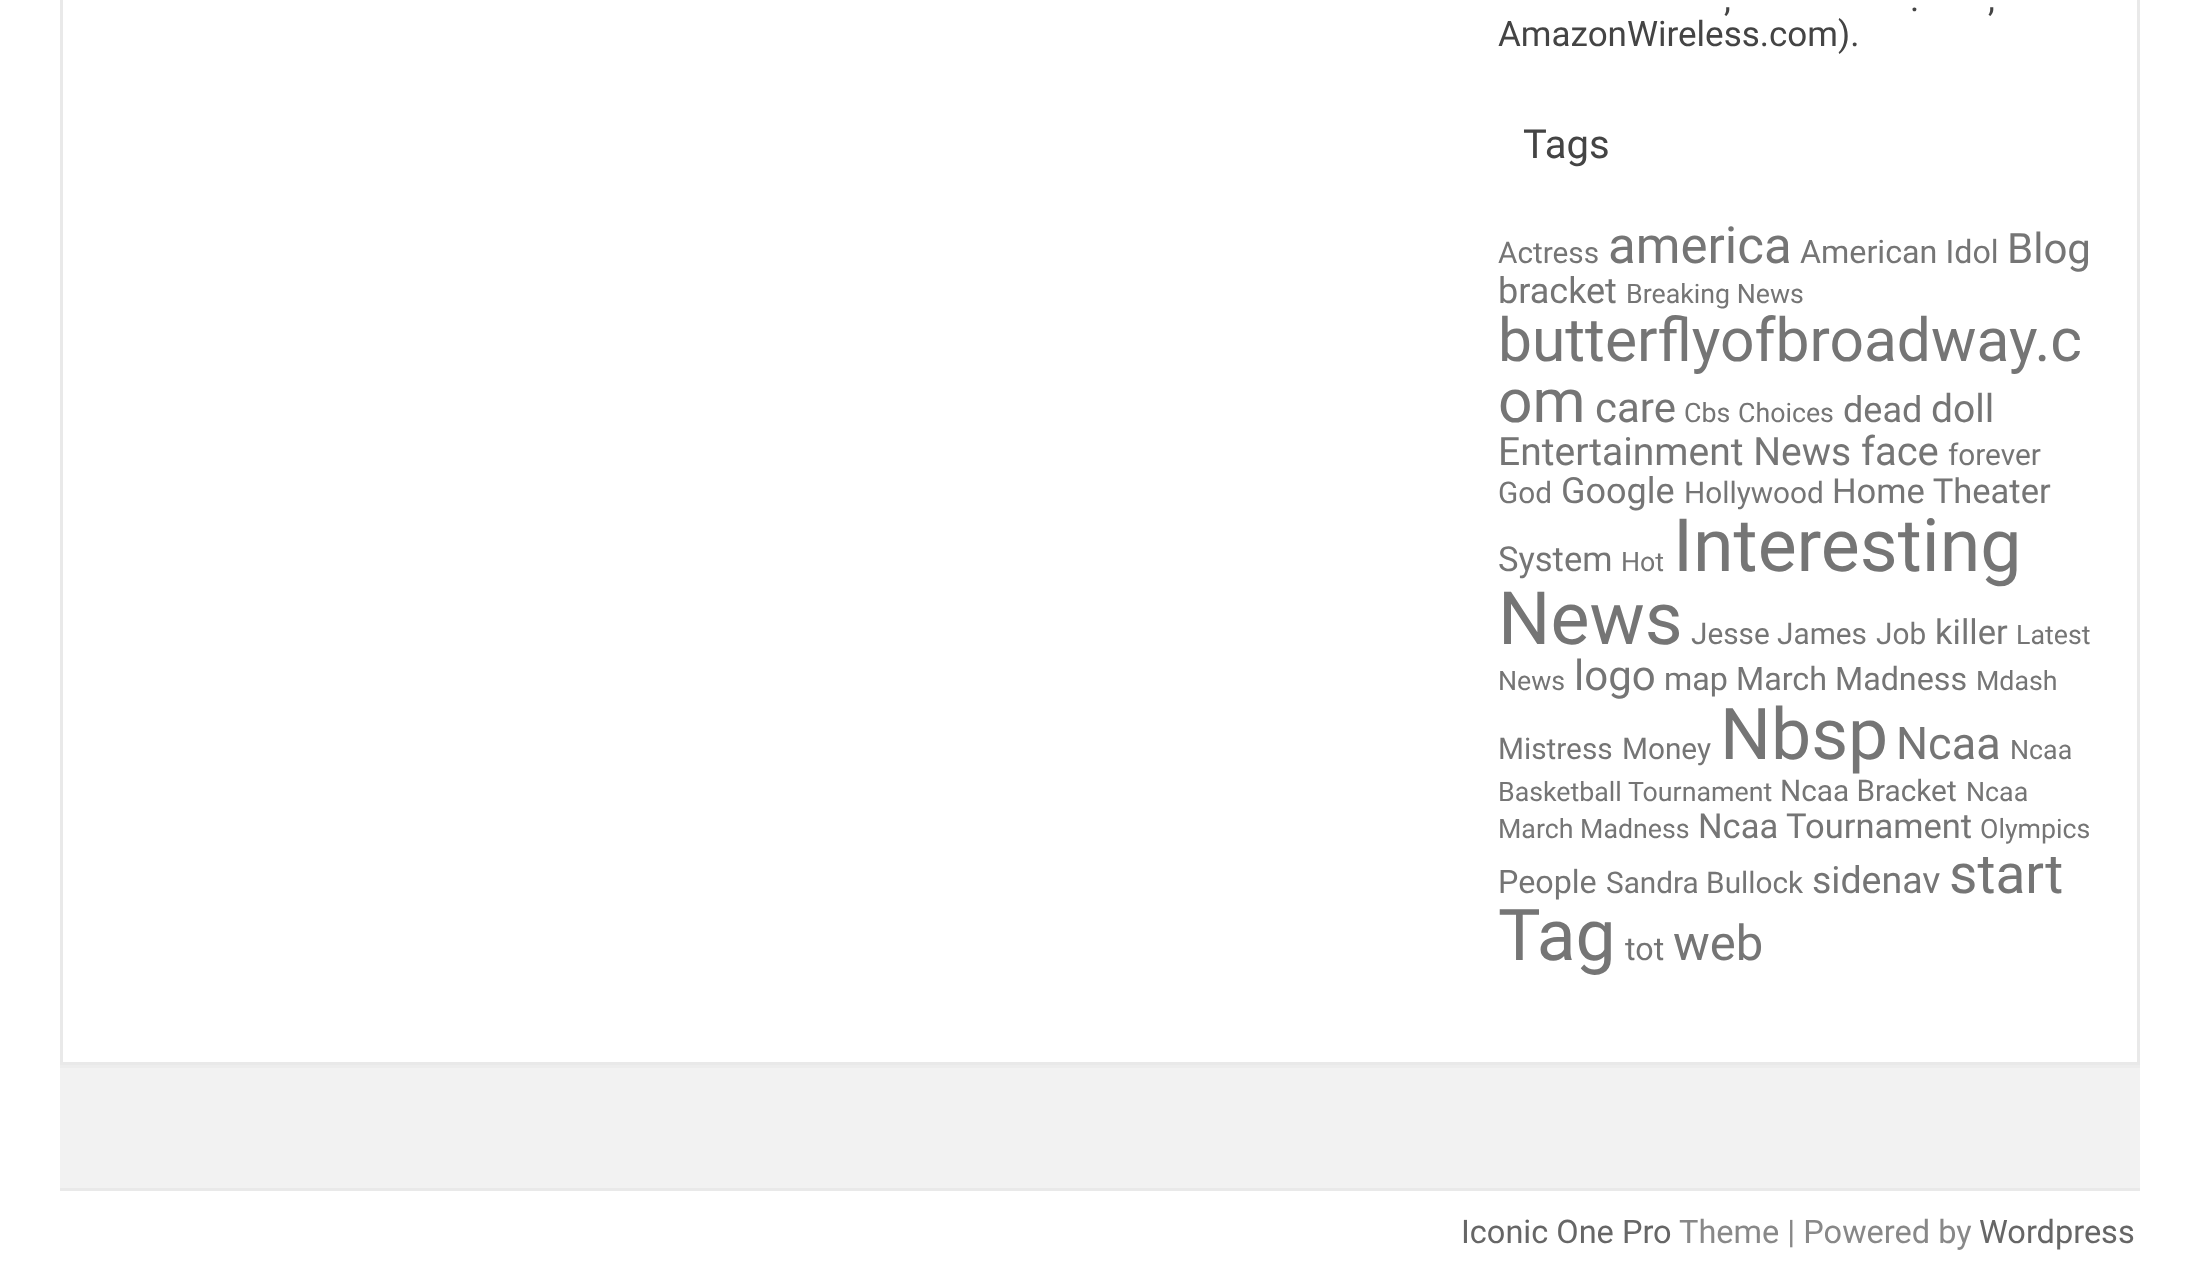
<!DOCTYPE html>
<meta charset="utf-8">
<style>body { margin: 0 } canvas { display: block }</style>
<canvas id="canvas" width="2199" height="1271"></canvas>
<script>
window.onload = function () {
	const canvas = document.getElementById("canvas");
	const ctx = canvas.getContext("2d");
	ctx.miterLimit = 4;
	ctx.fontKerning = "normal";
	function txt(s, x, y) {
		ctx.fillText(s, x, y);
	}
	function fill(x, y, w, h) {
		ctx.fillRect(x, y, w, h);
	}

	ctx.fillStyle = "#FFFFFF";
	fill(0, 0, 2199, 1271);
	ctx.strokeStyle = "#E9E9E9";
	ctx.lineWidth = 3;
	ctx.strokeRect(61.5, -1.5, 2077, 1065);
	ctx.fillStyle = "#F2F2F2";
	fill(60, 1068, 2080, 120);
	ctx.fillStyle = "#EDEDED";
	fill(60, 1065, 2080, 3);
	ctx.fillStyle = "#E9E9E9";
	fill(60, 1188, 2080, 3);
	ctx.font = "35px Roboto";
	ctx.fillStyle = "#444444";
	txt(",", 1724, 11);
	txt(".", 1910, 11);
	txt(",", 1988, 11);
	txt("AmazonWireless.com).", 1498, 46);
	ctx.font = "40px Roboto";
	txt("Tags", 1523, 158);
	ctx.font = "29.75px Roboto";
	ctx.fillStyle = "#757575";
	txt("Actress", 1498, 263);
	ctx.font = "51px Roboto";
	txt("america", 1608, 263);
	ctx.font = "32.25px Roboto";
	txt("American Idol", 1800, 263);
	ctx.font = "42px Roboto";
	txt("Blog", 2007, 263);
	ctx.font = "36px Roboto";
	txt("bracket", 1498, 303);
	ctx.font = "26.75px Roboto";
	txt("Breaking News", 1626, 303);
	ctx.font = "60.5px Roboto";
	txt("butterflyofbroadway.c", 1498, 361);
	txt("om", 1498, 422);
	ctx.font = "42px Roboto";
	txt("care", 1595, 422);
	ctx.font = "26.75px Roboto";
	txt("Cbs", 1684, 422);
	txt("Choices", 1738, 422);
	ctx.font = "36px Roboto";
	txt("dead", 1843, 422);
	ctx.font = "39px Roboto";
	txt("doll", 1931, 422);
	txt("Entertainment News", 1498, 465);
	ctx.font = "40px Roboto";
	txt("face", 1861, 465);
	ctx.font = "29.75px Roboto";
	txt("forever", 1948, 465);
	txt("God", 1498, 503);
	ctx.font = "36px Roboto";
	txt("Google", 1561, 503);
	ctx.font = "29.75px Roboto";
	txt("Hollywood", 1684, 503);
	ctx.font = "34.5px Roboto";
	txt("Home Theater", 1832, 503);
	txt("System", 1498, 571);
	ctx.font = "26.75px Roboto";
	txt("Hot", 1621, 571);
	ctx.font = "73.5px Roboto";
	txt("Interesting", 1673, 571);
	txt("News", 1498, 644);
	ctx.font = "29.75px Roboto";
	txt("Jesse James", 1691, 644);
	txt("Job", 1876, 644);
	ctx.font = "34.5px Roboto";
	txt("killer", 1935, 644);
	ctx.font = "26.75px Roboto";
	txt("Latest", 2016, 644);
	txt("News", 1498, 690);
	ctx.font = "42px Roboto";
	txt("logo", 1574, 690);
	ctx.font = "32.25px Roboto";
	txt("map", 1664, 690);
	txt("March Madness", 1736, 690);
	ctx.font = "26.75px Roboto";
	txt("Mdash", 1976, 690);
	ctx.font = "29.75px Roboto";
	txt("Mistress", 1498, 759);
	txt("Money", 1622, 759);
	ctx.font = "71.5px Roboto";
	txt("Nbsp", 1720, 759);
	ctx.font = "45px Roboto";
	txt("Ncaa", 1896, 759);
	ctx.font = "26.75px Roboto";
	txt("Ncaa", 2010, 759);
	txt("Basketball Tournament", 1498, 801);
	ctx.font = "29.75px Roboto";
	txt("Ncaa Bracket", 1780, 801);
	ctx.font = "26.75px Roboto";
	txt("Ncaa", 1966, 801);
	txt("March Madness", 1498, 838);
	ctx.font = "34.5px Roboto";
	txt("Ncaa Tournament", 1698, 838);
	ctx.font = "26.75px Roboto";
	txt("Olympics", 1980, 838);
	ctx.font = "32.25px Roboto";
	txt("People", 1498, 893);
	ctx.font = "29.75px Roboto";
	txt("Sandra Bullock", 1606, 893);
	ctx.font = "37.5px Roboto";
	txt("sidenav", 1812, 893);
	ctx.font = "55px Roboto";
	txt("start", 1949, 893);
	ctx.font = "71.5px Roboto";
	txt("Tag", 1498, 960);
	ctx.font = "32.25px Roboto";
	txt("tot", 1625, 960);
	ctx.font = "49px Roboto";
	txt("web", 1673, 960);
	ctx.font = "32.5px Roboto";
	ctx.fillStyle = "#666666";
	txt("Iconic One Pro", 1461, 1243);
	ctx.fillStyle = "#888888";
	txt("Theme | Powered by", 1679, 1243);
	ctx.fillStyle = "#666666";
	txt("Wordpress", 1979, 1243);
};
</script>
